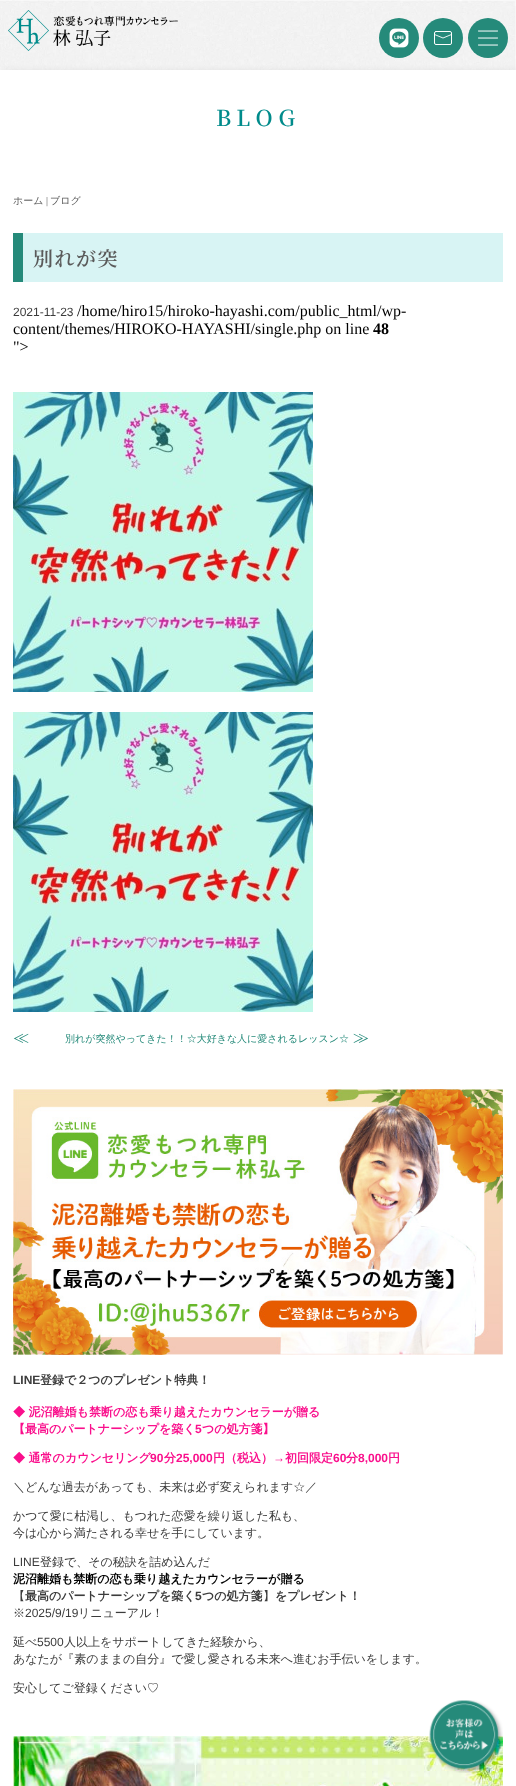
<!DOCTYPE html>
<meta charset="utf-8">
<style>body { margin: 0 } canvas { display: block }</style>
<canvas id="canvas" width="516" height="1786"></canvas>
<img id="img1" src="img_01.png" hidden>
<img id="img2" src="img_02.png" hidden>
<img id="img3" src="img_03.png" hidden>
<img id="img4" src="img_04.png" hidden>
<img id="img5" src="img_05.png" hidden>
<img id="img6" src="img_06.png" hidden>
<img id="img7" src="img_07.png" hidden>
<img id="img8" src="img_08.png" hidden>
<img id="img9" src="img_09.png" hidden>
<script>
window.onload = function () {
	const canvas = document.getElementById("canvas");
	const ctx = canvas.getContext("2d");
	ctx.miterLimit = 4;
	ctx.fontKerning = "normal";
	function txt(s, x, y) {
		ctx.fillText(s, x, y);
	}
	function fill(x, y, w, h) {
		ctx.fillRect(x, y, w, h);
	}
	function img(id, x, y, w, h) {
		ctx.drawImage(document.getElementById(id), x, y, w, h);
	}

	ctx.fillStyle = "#FFFFFF";
	fill(0, 0, 516, 1786);
	img("img1", 0, 0, 516, 70);
	img("img2", 8, 10, 41, 41);
	img("img3", 53, 16, 125, 30);
	ctx.fillStyle = "#258A7A";
	ctx.beginPath();
	ctx.arc(399, 38, 20, 0, Math.PI * 2);
	ctx.fill();
	img("img4", 389, 28, 20, 20);
	ctx.beginPath();
	ctx.arc(443, 38, 20, 0, Math.PI * 2);
	ctx.fill();
	ctx.beginPath();
	ctx.moveTo(434.5, 34.5);
	ctx.lineTo(443, 38);
	ctx.lineTo(451.5, 34.5);
	ctx.strokeStyle = "#FFFFFF";
	ctx.lineWidth = 0.9;
	ctx.lineCap = "round";
	ctx.lineJoin = "round";
	ctx.stroke();
	ctx.beginPath();
	ctx.roundRect(434.5, 31.5, 17, 13, 1.5);
	ctx.lineWidth = 1;
	ctx.lineJoin = "miter";
	ctx.stroke();
	ctx.beginPath();
	ctx.arc(488, 38, 20, 0, Math.PI * 2);
	ctx.fill();
	img("img5", 478, 30, 20, 16);
	ctx.fillStyle = "#CBCBCB";
	ctx.filter = "blur(5px)";
	ctx.beginPath();
	ctx.rect(4, 74, 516, 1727);
	ctx.fill();
	ctx.filter = "none";
	ctx.fillStyle = "#FFFFFF";
	fill(0, 70, 516, 1716);
	ctx.fillStyle = "#D8F4F4";
	fill(23, 233, 480, 49);
	ctx.fillStyle = "#258A7A";
	fill(13, 233, 10, 49);
	img("img6", 13, 392, 300, 300);
	img("img6", 13, 712, 300, 300);
	img("img7", 13, 1089, 490, 266);
	img("img8", 13, 1736, 490, 50);
	img("img9", 429, 1700, 74, 73);
	ctx.letterSpacing = "5.5px";
	ctx.font = "600 22px Noto Serif JP";
	ctx.fillStyle = "#008B8B";
	txt("BLOG", 216, 126);
	ctx.letterSpacing = "0px";
	ctx.font = "500 10px WenQuanYi Zen Hei";
	ctx.fillStyle = "#5A5A5A";
	txt("ホーム", 13, 204);
	ctx.font = "10px Liberation Serif";
	txt("|", 46, 204);
	ctx.font = "500 10px WenQuanYi Zen Hei";
	txt("ブログ", 50, 204);
	ctx.letterSpacing = "1.5px";
	ctx.font = "600 20px Noto Serif JP";
	txt("別れが突", 33, 266);
	ctx.letterSpacing = "0px";
	ctx.font = "16px Liberation Serif";
	ctx.fillStyle = "#000000";
	txt("/home/hiro15/hiroko-hayashi.com/public_html/wp-", 77, 316);
	txt("content/themes/HIROKO-HAYASHI/single.php on line", 13, 334);
	ctx.font = "bold 16px Liberation Serif";
	txt("48", 373, 334);
	ctx.font = "16px Liberation Serif";
	txt("\">", 13, 352);
	ctx.font = "12px Liberation Sans";
	ctx.fillStyle = "#3C3C3C";
	txt("2021-11-23", 13, 316);
	ctx.font = "500 16px WenQuanYi Zen Hei";
	ctx.fillStyle = "#258A7A";
	txt("≪", 13, 1043);
	ctx.font = "500 10px WenQuanYi Zen Hei";
	txt("別れが突然やってきた！！☆大好きな人に愛されるレッスン☆", 65, 1042);
	ctx.font = "500 16px WenQuanYi Zen Hei";
	txt("≫", 353, 1043);
	ctx.font = "bold 12px Liberation Sans";
	ctx.fillStyle = "#3C3C3C";
	txt("LINE", 13, 1384);
	ctx.font = "bold 12px WenQuanYi Zen Hei";
	txt("登録で２つのプレゼント特典！", 40, 1384);
	ctx.fillStyle = "#FA0F8C";
	txt("◆ 泥沼離婚も禁断の恋も乗り越えたカウンセラーが贈る", 13, 1416);
	txt("【最高のパートナーシップを築く", 13, 1433);
	ctx.font = "bold 12px Liberation Sans";
	txt("5", 195, 1433);
	ctx.font = "bold 12px WenQuanYi Zen Hei";
	txt("つの処方箋】", 202, 1433);
	txt("◆ 通常のカウンセリング", 13, 1462);
	ctx.font = "bold 12px Liberation Sans";
	txt("90", 150, 1462);
	ctx.font = "bold 12px WenQuanYi Zen Hei";
	txt("分", 164, 1462);
	ctx.font = "bold 12px Liberation Sans";
	txt("25,000", 176, 1462);
	ctx.font = "bold 12px WenQuanYi Zen Hei";
	txt("円（税込）", 213, 1462);
	ctx.font = "bold 12px Liberation Sans";
	txt("→", 273, 1462);
	ctx.font = "bold 12px WenQuanYi Zen Hei";
	txt("初回限定", 285, 1462);
	ctx.font = "bold 12px Liberation Sans";
	txt("60", 333, 1462);
	ctx.font = "bold 12px WenQuanYi Zen Hei";
	txt("分", 346, 1462);
	ctx.font = "bold 12px Liberation Sans";
	txt("8,000", 358, 1462);
	ctx.font = "bold 12px WenQuanYi Zen Hei";
	txt("円", 388, 1462);
	ctx.font = "500 12px WenQuanYi Zen Hei";
	ctx.fillStyle = "#3C3C3C";
	txt("＼どんな過去があっても、未来は必ず変えられます☆／", 13, 1491);
	txt("かつて愛に枯渇し、もつれた恋愛を繰り返した私も、", 13, 1520);
	txt("今は心から満たされる幸せを手にしています。", 13, 1537);
	ctx.font = "12px Liberation Sans";
	txt("LINE", 13, 1566);
	ctx.font = "500 12px WenQuanYi Zen Hei";
	txt("登録で、その秘訣を詰め込んだ", 40, 1566);
	ctx.font = "bold 12px WenQuanYi Zen Hei";
	ctx.fillStyle = "#000000";
	txt("泥沼離婚も禁断の恋も乗り越えたカウンセラーが贈る", 13, 1583);
	ctx.font = "500 12px WenQuanYi Zen Hei";
	ctx.fillStyle = "#3C3C3C";
	txt("【", 13, 1600);
	ctx.font = "bold 12px WenQuanYi Zen Hei";
	txt("最高のパートナーシップを築く", 25, 1600);
	ctx.font = "bold 12px Liberation Sans";
	txt("5", 195, 1600);
	ctx.font = "bold 12px WenQuanYi Zen Hei";
	txt("つの処方箋", 202, 1600);
	ctx.font = "500 12px WenQuanYi Zen Hei";
	txt("】", 263, 1600);
	ctx.font = "bold 12px WenQuanYi Zen Hei";
	txt("をプレゼント！", 275, 1600);
	ctx.font = "500 12px WenQuanYi Zen Hei";
	txt("※", 13, 1617);
	ctx.font = "12px Liberation Sans";
	txt("2025/9/19", 25, 1617);
	ctx.font = "500 12px WenQuanYi Zen Hei";
	txt("リニューアル！", 78, 1617);
	txt("延べ", 13, 1646);
	ctx.font = "12px Liberation Sans";
	txt("5500", 37, 1646);
	ctx.font = "500 12px WenQuanYi Zen Hei";
	txt("人以上をサポートしてきた経験から、", 64, 1646);
	txt("あなたが『素のままの自分』で愛し愛される未来へ進むお手伝いをします。", 13, 1663);
	txt("安心してご登録ください♡", 13, 1692);
};
</script>
